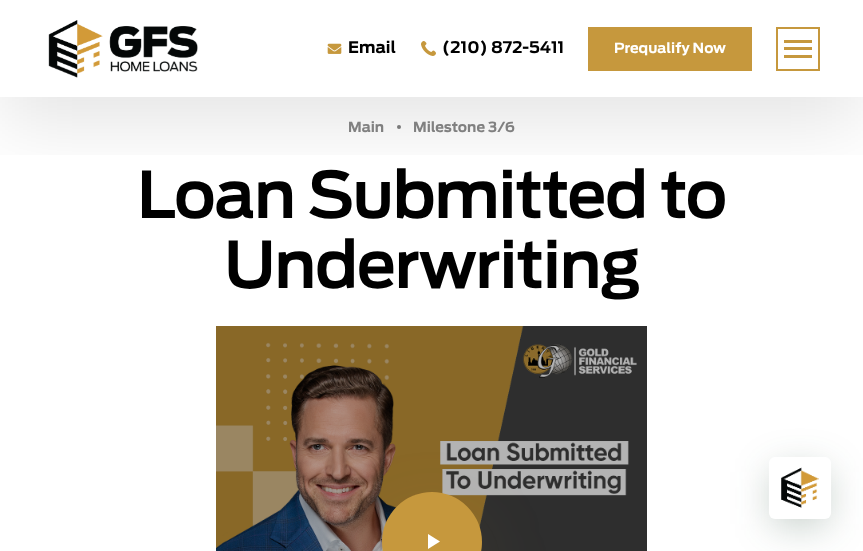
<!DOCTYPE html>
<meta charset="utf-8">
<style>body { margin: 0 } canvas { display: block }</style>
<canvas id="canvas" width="863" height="551"></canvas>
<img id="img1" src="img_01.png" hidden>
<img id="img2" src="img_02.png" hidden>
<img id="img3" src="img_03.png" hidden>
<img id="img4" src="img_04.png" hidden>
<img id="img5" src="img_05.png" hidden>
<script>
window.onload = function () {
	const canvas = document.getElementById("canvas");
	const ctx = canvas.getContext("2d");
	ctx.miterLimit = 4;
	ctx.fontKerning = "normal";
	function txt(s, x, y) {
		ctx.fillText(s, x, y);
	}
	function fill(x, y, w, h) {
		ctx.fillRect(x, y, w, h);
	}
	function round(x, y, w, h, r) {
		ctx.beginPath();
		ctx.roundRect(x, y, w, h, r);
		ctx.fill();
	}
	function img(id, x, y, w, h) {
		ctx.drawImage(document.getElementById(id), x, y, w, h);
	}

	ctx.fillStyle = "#FFFFFF";
	fill(0, 0, 863, 551);
	ctx.fillStyle = "#808080";
	ctx.beginPath();
	ctx.arc(399, 127, 2, 0, Math.PI * 2);
	ctx.fill();
	ctx.save();
	ctx.beginPath();
	ctx.rect(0, 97, 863, 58);
	ctx.clip();
	ctx.fillStyle = "rgba(0, 0, 0, 0.11)";
	ctx.filter = "blur(37px)";
	ctx.beginPath();
	ctx.rect(0, 24, 863, 97);
	ctx.fill();
	ctx.filter = "none";
	ctx.restore();
	img("img1", 48, 20, 150, 58);
	img("img2", 327, 43, 15, 11);
	img("img3", 421, 41, 15, 15);
	ctx.fillStyle = "#C6983D";
	fill(588, 27, 164, 44);
	ctx.strokeStyle = "#C6983D";
	ctx.lineWidth = 2;
	ctx.strokeRect(777, 28, 42, 42);
	fill(784, 40, 28, 3);
	fill(784, 47, 28, 3);
	fill(784, 55, 28, 3);
	img("img4", 216, 326, 431, 225);
	ctx.fillStyle = "rgba(198, 152, 61, 0.11)";
	ctx.filter = "blur(37px)";
	ctx.beginPath();
	ctx.roundRect(382, 516, 100, 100, 50);
	ctx.fill();
	ctx.filter = "none";
	ctx.fillStyle = "#C6983D";
	ctx.beginPath();
	ctx.arc(432, 542, 50, 0, Math.PI * 2);
	ctx.fill();
	ctx.fillStyle = "#FFFFFF";
	ctx.beginPath();
	ctx.moveTo(440, 541.5);
	ctx.lineTo(428, 549);
	ctx.lineTo(428, 534);
	ctx.closePath();
	ctx.fill();
	ctx.fillStyle = "rgba(29, 67, 46, 0.3)";
	ctx.filter = "blur(20px)";
	ctx.beginPath();
	ctx.roundRect(774, 472, 52, 52, 1);
	ctx.fill();
	ctx.filter = "none";
	ctx.fillStyle = "#FFFFFF";
	round(769, 457, 62, 62, 6);
	img("img5", 781, 467, 38, 41);
	ctx.font = "bold 16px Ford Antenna";
	ctx.fillStyle = "#000000";
	txt("Email", 348, 53);
	txt("(210) 872-5411", 442, 53);
	ctx.font = "bold 14px Ford Antenna";
	ctx.fillStyle = "#FFFFFF";
	txt("Prequalify Now", 614, 53);
	ctx.fillStyle = "#808080";
	txt("Main", 348, 132);
	txt("Milestone 3/6", 413, 132);
	ctx.letterSpacing = "-1.25px";
	ctx.font = "600 64px Ford Antenna";
	ctx.fillStyle = "#000000";
	txt("Loan Submitted to", 137, 218);
	txt("Underwriting", 224, 288);
};
</script>
